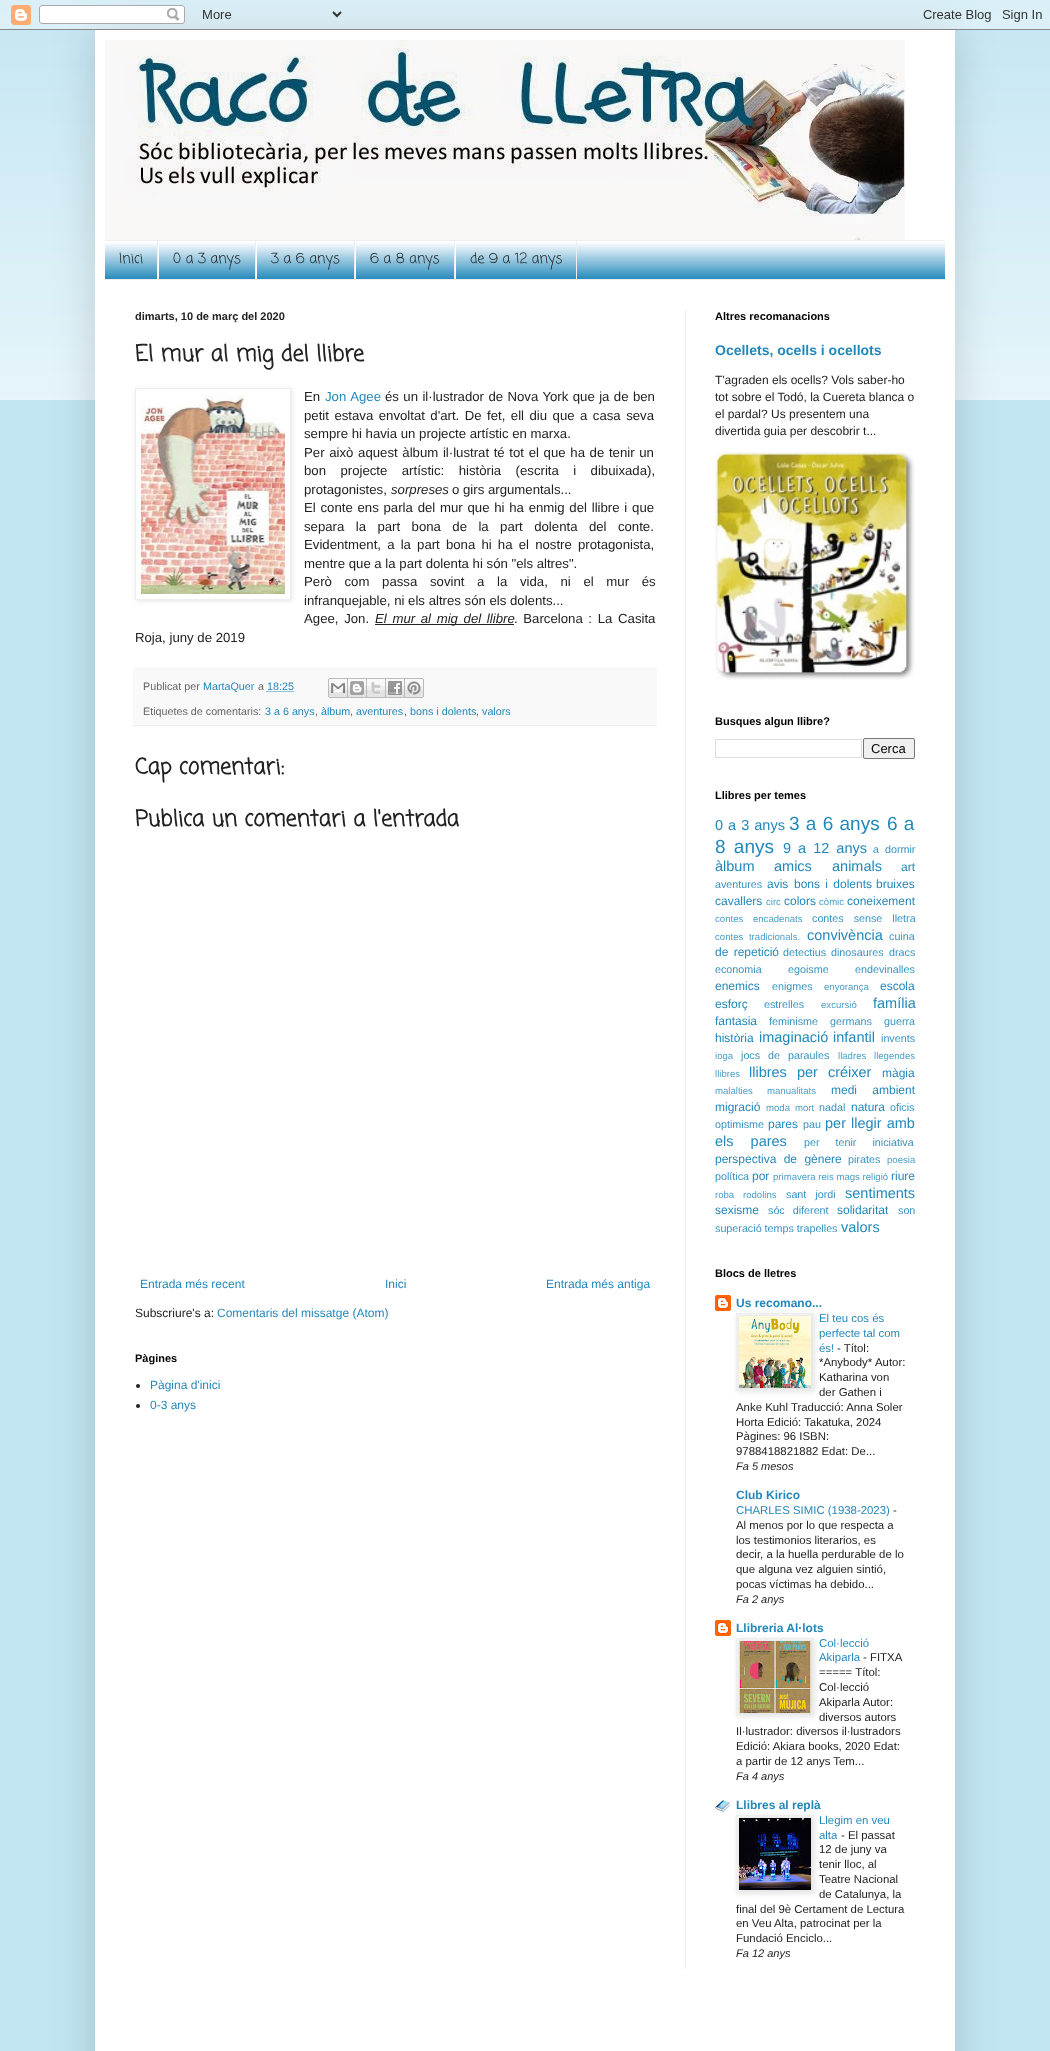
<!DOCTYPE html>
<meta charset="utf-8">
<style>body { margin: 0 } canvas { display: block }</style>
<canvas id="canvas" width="1050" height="2051"></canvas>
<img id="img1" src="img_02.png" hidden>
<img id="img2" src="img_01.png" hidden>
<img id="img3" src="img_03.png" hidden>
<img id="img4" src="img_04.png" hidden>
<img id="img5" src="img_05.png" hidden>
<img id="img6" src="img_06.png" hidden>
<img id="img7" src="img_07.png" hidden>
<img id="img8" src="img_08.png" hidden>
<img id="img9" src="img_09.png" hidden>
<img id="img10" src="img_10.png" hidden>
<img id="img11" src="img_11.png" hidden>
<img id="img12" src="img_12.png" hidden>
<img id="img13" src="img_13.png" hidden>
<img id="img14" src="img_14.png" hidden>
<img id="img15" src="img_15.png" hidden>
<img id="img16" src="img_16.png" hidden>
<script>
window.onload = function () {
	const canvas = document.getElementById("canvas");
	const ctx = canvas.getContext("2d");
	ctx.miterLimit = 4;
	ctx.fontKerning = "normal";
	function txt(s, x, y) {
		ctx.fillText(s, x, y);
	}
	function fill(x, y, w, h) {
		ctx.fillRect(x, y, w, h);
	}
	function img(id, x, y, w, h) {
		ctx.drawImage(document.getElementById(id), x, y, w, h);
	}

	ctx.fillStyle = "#C1E5F2";
	fill(0, 0, 1050, 2051);
	img("img1", 0, 10, 1050, 390);
	ctx.fillStyle = "rgba(0, 0, 0, 0.15)";
	ctx.filter = "blur(20px)";
	ctx.beginPath();
	ctx.rect(95, 30, 860, 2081);
	ctx.fill();
	ctx.filter = "none";
	img("img2", 0, 0, 1050, 30);
	ctx.fillStyle = "#FFFFFF";
	fill(95, 30, 860, 2021);
	img("img3", 105, 40, 800, 200);
	ctx.fillStyle = "#2288BB";
	fill(105, 242, 840, 37);
	img("img4", 105, 241, 840, 38);
	ctx.fillStyle = "#EEEEEE";
	fill(105, 240, 840, 1);
	fill(105, 279, 840, 1);
	fill(157, 241, 1, 38);
	fill(255, 241, 1, 38);
	ctx.fillStyle = "#FFFFFF";
	fill(158, 241, 1, 38);
	ctx.fillStyle = "#EEEEEE";
	fill(354, 241, 1, 38);
	ctx.fillStyle = "#FFFFFF";
	fill(256, 241, 1, 38);
	ctx.fillStyle = "#EEEEEE";
	fill(454, 241, 1, 38);
	ctx.fillStyle = "#FFFFFF";
	fill(355, 241, 1, 38);
	ctx.fillStyle = "#EEEEEE";
	fill(576, 241, 1, 38);
	ctx.fillStyle = "#FFFFFF";
	fill(455, 241, 1, 38);
	ctx.fillStyle = "#EEEEEE";
	fill(685, 310, 1, 1659);
	ctx.save();
	ctx.beginPath();
	ctx.moveTo(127, 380);
	ctx.lineTo(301, 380);
	ctx.lineTo(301, 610);
	ctx.lineTo(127, 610);
	ctx.closePath();
	ctx.moveTo(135, 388);
	ctx.lineTo(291, 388);
	ctx.lineTo(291, 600);
	ctx.lineTo(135, 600);
	ctx.closePath();
	ctx.clip("evenodd");
	ctx.fillStyle = "rgba(0, 0, 0, 0.1)";
	ctx.filter = "blur(2.5px)";
	ctx.beginPath();
	ctx.rect(136, 389, 156, 212);
	ctx.fill();
	ctx.filter = "none";
	ctx.restore();
	ctx.strokeStyle = "#EEEEEE";
	ctx.strokeRect(135.5, 388.5, 155, 211);
	img("img5", 141, 394, 144, 200);
	ctx.fillStyle = "#222222";
	fill(375, 624, 139, 1);
	ctx.fillStyle = "#F9F9F9";
	fill(133, 667, 524, 58);
	ctx.fillStyle = "#EEEEEE";
	fill(133, 725, 524, 1);
	ctx.beginPath();
	ctx.moveTo(266.5, 691.5);
	ctx.lineTo(293.5, 691.5);
	ctx.strokeStyle = "#2288BB";
	ctx.setLineDash([1, 1]);
	ctx.stroke();
	img("img6", 328, 678, 20, 20);
	img("img7", 348, 678, 19, 20);
	img("img8", 367, 678, 19, 20);
	img("img9", 386, 678, 19, 20);
	img("img10", 405, 678, 19, 20);
	ctx.fillStyle = "#222222";
	ctx.beginPath();
	ctx.arc(138, 1386, 2, 0, Math.PI * 2);
	ctx.fill();
	ctx.beginPath();
	ctx.arc(138, 1406, 2, 0, Math.PI * 2);
	ctx.fill();
	img("img11", 715, 452, 200, 228);
	ctx.strokeStyle = "#DDDDDD";
	ctx.setLineDash([]);
	ctx.strokeRect(715.5, 739.5, 146, 18);
	ctx.fillStyle = "#EFEFEF";
	ctx.beginPath();
	ctx.roundRect(863.5, 738.5, 51, 20, 1.5);
	ctx.fill();
	ctx.strokeStyle = "#767676";
	ctx.stroke();
	img("img12", 715, 1295, 16, 16);
	ctx.fillStyle = "rgba(0, 0, 0, 0.1)";
	ctx.filter = "blur(2.5px)";
	ctx.beginPath();
	ctx.rect(737, 1314, 78, 78);
	ctx.fill();
	ctx.filter = "none";
	ctx.strokeStyle = "#EEEEEE";
	ctx.strokeRect(736.5, 1313.5, 77, 77);
	img("img13", 739, 1316, 72, 72);
	img("img12", 715, 1620, 16, 16);
	ctx.filter = "blur(2.5px)";
	ctx.beginPath();
	ctx.rect(737, 1639, 78, 78);
	ctx.fill();
	ctx.filter = "none";
	ctx.strokeRect(736.5, 1638.5, 77, 77);
	img("img14", 739, 1641, 72, 72);
	img("img15", 715, 1800, 15, 12);
	ctx.filter = "blur(2.5px)";
	ctx.beginPath();
	ctx.rect(737, 1816, 78, 78);
	ctx.fill();
	ctx.filter = "none";
	ctx.strokeRect(736.5, 1815.5, 77, 77);
	img("img16", 739, 1818, 72, 72);
	ctx.font = "14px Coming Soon";
	ctx.fillStyle = "#222222";
	txt("Inici", 119, 263);
	txt("0 a 3 anys", 173, 263);
	txt("3 a 6 anys", 271, 263);
	txt("6 a 8 anys", 370, 263);
	txt("de 9 a 12 anys", 470, 263);
	ctx.font = "bold 11px Liberation Sans";
	txt("dimarts, 10 de març del 2020", 135, 320);
	ctx.font = "bold 22px Coming Soon";
	txt("El mur al mig del llibre", 135, 361);
	ctx.font = "13.2px Liberation Sans";
	txt("En", 304, 401);
	ctx.wordSpacing = "1px";
	ctx.fillStyle = "#2288BB";
	txt("Jon Agee", 325, 401);
	ctx.wordSpacing = "0.75px";
	ctx.fillStyle = "#222222";
	txt("és un il·lustrador de Nova York que ja de ben", 385, 401);
	ctx.wordSpacing = "1.8px";
	txt("petit estava envoltat d'art. De fet, ell diu que a casa seva", 304, 420);
	ctx.wordSpacing = "0px";
	txt("sempre hi havia un projecte artístic en marxa.", 304, 438);
	ctx.wordSpacing = "1px";
	txt("Per això aquest àlbum il·lustrat té tot el que ha de tenir un", 304, 457);
	ctx.wordSpacing = "10.75px";
	txt("bon projecte artístic: història (escrita i dibuixada),", 304, 475);
	ctx.wordSpacing = "0px";
	txt("protagonistes,", 304, 494);
	ctx.font = "italic 13.2px Liberation Sans";
	txt("sorpreses", 391, 494);
	ctx.font = "13.2px Liberation Sans";
	txt("o girs argumentals...", 452, 494);
	ctx.wordSpacing = "1.1px";
	txt("El conte ens parla del mur que hi ha enmig del llibre i que", 304, 512);
	ctx.wordSpacing = "7.75px";
	txt("separa la part bona de la part dolenta del conte.", 304, 531);
	ctx.wordSpacing = "2.5px";
	txt("Evidentment, a la part bona hi ha el nostre protagonista,", 304, 549);
	ctx.wordSpacing = "0px";
	txt("mentre que a la part dolenta hi són \"els altres\".", 304, 568);
	ctx.wordSpacing = "9px";
	txt("Però com passa sovint a la vida, ni el mur és", 304, 586);
	ctx.wordSpacing = "0px";
	txt("infranquejable, ni els altres són els dolents...", 304, 605);
	ctx.wordSpacing = "2px";
	txt("Agee, Jon.", 304, 623);
	ctx.font = "italic 13.2px Liberation Sans";
	txt("El mur al mig del llibre", 375, 623);
	ctx.font = "13.2px Liberation Sans";
	txt(". Barcelona : La Casita", 514, 623);
	ctx.wordSpacing = "0px";
	txt("Roja, juny de 2019", 135, 642);
	ctx.font = "10.75px Liberation Sans";
	ctx.fillStyle = "#666666";
	txt("Publicat per", 143, 690);
	ctx.fillStyle = "#2288BB";
	txt("MartaQuer", 203, 690);
	ctx.fillStyle = "#666666";
	txt("a", 258, 690);
	ctx.fillStyle = "#2288BB";
	txt("18:25", 267, 690);
	ctx.fillStyle = "#666666";
	txt("Etiquetes de comentaris:", 143, 715);
	ctx.fillStyle = "#2288BB";
	txt("3 a 6 anys", 265, 715);
	ctx.fillStyle = "#666666";
	txt(",", 315, 715);
	ctx.fillStyle = "#2288BB";
	txt("àlbum", 321, 715);
	ctx.fillStyle = "#666666";
	txt(",", 350, 715);
	ctx.fillStyle = "#2288BB";
	txt("aventures", 356, 715);
	ctx.fillStyle = "#666666";
	txt(",", 404, 715);
	ctx.fillStyle = "#2288BB";
	txt("bons i dolents", 410, 715);
	ctx.fillStyle = "#666666";
	txt(",", 476, 715);
	ctx.fillStyle = "#2288BB";
	txt("valors", 482, 715);
	ctx.font = "bold 22px Coming Soon";
	ctx.fillStyle = "#222222";
	txt("Cap comentari:", 135, 774);
	txt("Publica un comentari a l'entrada", 135, 826);
	ctx.font = "12px Liberation Sans";
	ctx.fillStyle = "#2288BB";
	txt("Entrada més recent", 140, 1288);
	txt("Inici", 385, 1288);
	txt("Entrada més antiga", 546, 1288);
	ctx.fillStyle = "#222222";
	txt("Subscriure's a:", 135, 1317);
	ctx.fillStyle = "#2288BB";
	txt("Comentaris del missatge (Atom)", 217, 1317);
	ctx.font = "bold 11px Liberation Sans";
	ctx.fillStyle = "#000000";
	txt("Pàgines", 135, 1362);
	ctx.font = "12px Liberation Sans";
	ctx.fillStyle = "#2288BB";
	txt("Pàgina d'inici", 150, 1389);
	txt("0-3 anys", 150, 1409);
	ctx.font = "bold 11px Liberation Sans";
	ctx.fillStyle = "#000000";
	txt("Altres recomanacions", 715, 320);
	ctx.font = "bold 14px Liberation Sans";
	ctx.fillStyle = "#2288BB";
	txt("Ocellets, ocells i ocellots", 715, 355);
	ctx.font = "12px Liberation Sans";
	ctx.fillStyle = "#222222";
	txt("T'agraden els ocells? Vols saber-ho", 715, 384);
	txt("tot sobre el Todó, la Cuereta blanca o", 715, 401);
	txt("el pardal? Us presentem una", 715, 418);
	txt("divertida guia per descobrir t...", 715, 435);
	ctx.font = "bold 11px Liberation Sans";
	ctx.fillStyle = "#000000";
	txt("Busques algun llibre?", 715, 725);
	ctx.font = "13px Liberation Sans";
	txt("Cerca", 871, 753);
	ctx.font = "bold 11px Liberation Sans";
	txt("Llibres per temes", 715, 799);
	ctx.wordSpacing = "1px";
	ctx.font = "14.5px Liberation Sans";
	ctx.fillStyle = "#2288BB";
	txt("0 a 3 anys", 715, 830);
	ctx.font = "19px Liberation Sans";
	txt("3 a 6 anys", 789, 830);
	txt("6 a", 887, 830);
	ctx.wordSpacing = "3px";
	txt("8 anys", 715, 853);
	ctx.font = "14.5px Liberation Sans";
	txt("9 a 12 anys", 783, 853);
	ctx.font = "10.75px Liberation Sans";
	ctx.fillStyle = "#3894C2";
	txt("a dormir", 873, 853);
	ctx.wordSpacing = "0px";
	ctx.font = "14.5px Liberation Sans";
	ctx.fillStyle = "#2288BB";
	txt("àlbum", 715, 871);
	txt("amics", 774, 871);
	txt("animals", 832, 871);
	ctx.font = "12px Liberation Sans";
	txt("art", 901, 871);
	ctx.font = "10.75px Liberation Sans";
	ctx.fillStyle = "#3894C2";
	txt("aventures", 715, 888);
	ctx.font = "12px Liberation Sans";
	ctx.fillStyle = "#2288BB";
	txt("avis", 767, 888);
	ctx.wordSpacing = "2px";
	txt("bons i dolents", 794, 888);
	ctx.wordSpacing = "0px";
	txt("bruixes", 876, 888);
	txt("cavallers", 715, 905);
	ctx.font = "9.6px Liberation Sans";
	ctx.fillStyle = "#4EA0C9";
	txt("circ", 766, 905);
	ctx.font = "12px Liberation Sans";
	ctx.fillStyle = "#2288BB";
	txt("colors", 784, 905);
	ctx.font = "9.6px Liberation Sans";
	ctx.fillStyle = "#4EA0C9";
	txt("còmic", 819, 905);
	ctx.font = "12px Liberation Sans";
	ctx.fillStyle = "#2288BB";
	txt("coneixement", 847, 905);
	ctx.wordSpacing = "7px";
	ctx.font = "9.6px Liberation Sans";
	ctx.fillStyle = "#4EA0C9";
	txt("contes encadenats", 715, 922);
	ctx.font = "10.75px Liberation Sans";
	ctx.fillStyle = "#3894C2";
	txt("contes sense lletra", 812, 922);
	ctx.wordSpacing = "3px";
	ctx.font = "9.6px Liberation Sans";
	ctx.fillStyle = "#4EA0C9";
	txt("contes tradicionals.", 715, 940);
	ctx.wordSpacing = "0px";
	ctx.font = "14.5px Liberation Sans";
	ctx.fillStyle = "#2288BB";
	txt("convivència", 807, 940);
	ctx.font = "10.75px Liberation Sans";
	ctx.fillStyle = "#3894C2";
	txt("cuina", 889, 940);
	ctx.wordSpacing = "2px";
	ctx.font = "12px Liberation Sans";
	ctx.fillStyle = "#2288BB";
	txt("de repetició", 715, 956);
	ctx.wordSpacing = "0px";
	ctx.font = "10.75px Liberation Sans";
	ctx.fillStyle = "#3894C2";
	txt("detectius", 783, 956);
	txt("dinosaures", 831, 956);
	txt("dracs", 889, 956);
	txt("economia", 715, 973);
	txt("egoisme", 788, 973);
	txt("endevinalles", 855, 973);
	ctx.font = "12px Liberation Sans";
	ctx.fillStyle = "#2288BB";
	txt("enemics", 715, 990);
	ctx.font = "10.75px Liberation Sans";
	ctx.fillStyle = "#3894C2";
	txt("enigmes", 772, 990);
	ctx.font = "9.6px Liberation Sans";
	ctx.fillStyle = "#4EA0C9";
	txt("enyorança", 824, 990);
	ctx.font = "12px Liberation Sans";
	ctx.fillStyle = "#2288BB";
	txt("escola", 880, 990);
	txt("esforç", 715, 1008);
	ctx.font = "10.75px Liberation Sans";
	ctx.fillStyle = "#3894C2";
	txt("estrelles", 764, 1008);
	ctx.font = "9.6px Liberation Sans";
	ctx.fillStyle = "#4EA0C9";
	txt("excursió", 821, 1008);
	ctx.font = "14.5px Liberation Sans";
	ctx.fillStyle = "#2288BB";
	txt("família", 873, 1008);
	ctx.font = "12px Liberation Sans";
	txt("fantasia", 715, 1025);
	ctx.font = "10.75px Liberation Sans";
	ctx.fillStyle = "#3894C2";
	txt("feminisme", 769, 1025);
	txt("germans", 830, 1025);
	txt("guerra", 884, 1025);
	ctx.font = "12px Liberation Sans";
	ctx.fillStyle = "#2288BB";
	txt("història", 715, 1042);
	ctx.font = "14.5px Liberation Sans";
	txt("imaginació", 759, 1042);
	txt("infantil", 833, 1042);
	ctx.font = "10.75px Liberation Sans";
	ctx.fillStyle = "#3894C2";
	txt("invents", 881, 1042);
	ctx.font = "9.6px Liberation Sans";
	ctx.fillStyle = "#4EA0C9";
	txt("ioga", 715, 1059);
	ctx.wordSpacing = "5px";
	ctx.font = "10.75px Liberation Sans";
	ctx.fillStyle = "#3894C2";
	txt("jocs de paraules", 741, 1059);
	ctx.wordSpacing = "0px";
	ctx.font = "9.6px Liberation Sans";
	ctx.fillStyle = "#4EA0C9";
	txt("lladres", 838, 1059);
	txt("llegendes", 874, 1059);
	txt("llibres", 715, 1077);
	ctx.wordSpacing = "6px";
	ctx.font = "14.5px Liberation Sans";
	ctx.fillStyle = "#2288BB";
	txt("llibres per créixer", 749, 1077);
	ctx.wordSpacing = "0px";
	ctx.font = "12px Liberation Sans";
	txt("màgia", 882, 1077);
	ctx.font = "9.6px Liberation Sans";
	ctx.fillStyle = "#4EA0C9";
	txt("malalties", 715, 1094);
	txt("manualitats", 767, 1094);
	ctx.wordSpacing = "12px";
	ctx.font = "12px Liberation Sans";
	ctx.fillStyle = "#2288BB";
	txt("medi ambient", 831, 1094);
	ctx.wordSpacing = "0px";
	txt("migració", 715, 1111);
	ctx.font = "9.6px Liberation Sans";
	ctx.fillStyle = "#4EA0C9";
	txt("moda", 766, 1111);
	txt("mort", 795, 1111);
	ctx.font = "10.75px Liberation Sans";
	ctx.fillStyle = "#3894C2";
	txt("nadal", 819, 1111);
	ctx.font = "12px Liberation Sans";
	ctx.fillStyle = "#2288BB";
	txt("natura", 851, 1111);
	ctx.font = "10.75px Liberation Sans";
	ctx.fillStyle = "#3894C2";
	txt("oficis", 890, 1111);
	txt("optimisme", 715, 1128);
	ctx.font = "12px Liberation Sans";
	ctx.fillStyle = "#2288BB";
	txt("pares", 768, 1128);
	ctx.font = "10.75px Liberation Sans";
	ctx.fillStyle = "#3894C2";
	txt("pau", 803, 1128);
	ctx.wordSpacing = "1px";
	ctx.font = "14.5px Liberation Sans";
	ctx.fillStyle = "#2288BB";
	txt("per llegir amb", 825, 1128);
	ctx.wordSpacing = "13px";
	txt("els pares", 715, 1146);
	ctx.font = "10.75px Liberation Sans";
	ctx.fillStyle = "#3894C2";
	txt("per tenir iniciativa", 804, 1146);
	ctx.wordSpacing = "4px";
	ctx.font = "12px Liberation Sans";
	ctx.fillStyle = "#2288BB";
	txt("perspectiva de gènere", 715, 1163);
	ctx.wordSpacing = "0px";
	ctx.font = "10.75px Liberation Sans";
	ctx.fillStyle = "#3894C2";
	txt("pirates", 848, 1163);
	ctx.font = "9.6px Liberation Sans";
	ctx.fillStyle = "#4EA0C9";
	txt("poesia", 887, 1163);
	ctx.font = "10.75px Liberation Sans";
	ctx.fillStyle = "#3894C2";
	txt("política", 715, 1180);
	ctx.font = "12px Liberation Sans";
	ctx.fillStyle = "#2288BB";
	txt("por", 752, 1180);
	ctx.font = "9.6px Liberation Sans";
	ctx.fillStyle = "#4EA0C9";
	txt("primavera reis mags religió", 773, 1180);
	ctx.font = "12px Liberation Sans";
	ctx.fillStyle = "#2288BB";
	txt("riure", 891, 1180);
	ctx.font = "9.6px Liberation Sans";
	ctx.fillStyle = "#4EA0C9";
	txt("roba", 715, 1198);
	txt("rodolins", 743, 1198);
	ctx.wordSpacing = "6px";
	ctx.font = "10.75px Liberation Sans";
	ctx.fillStyle = "#3894C2";
	txt("sant jordi", 786, 1198);
	ctx.wordSpacing = "0px";
	ctx.font = "14.5px Liberation Sans";
	ctx.fillStyle = "#2288BB";
	txt("sentiments", 845, 1198);
	ctx.font = "12px Liberation Sans";
	txt("sexisme", 715, 1214);
	ctx.wordSpacing = "5px";
	ctx.font = "10.75px Liberation Sans";
	ctx.fillStyle = "#3894C2";
	txt("sóc diferent", 768, 1214);
	ctx.wordSpacing = "0px";
	ctx.font = "12px Liberation Sans";
	ctx.fillStyle = "#2288BB";
	txt("solidaritat", 837, 1214);
	ctx.font = "10.75px Liberation Sans";
	ctx.fillStyle = "#3894C2";
	txt("son", 898, 1214);
	txt("superació temps trapelles", 715, 1232);
	ctx.font = "14.5px Liberation Sans";
	ctx.fillStyle = "#2288BB";
	txt("valors", 841, 1232);
	ctx.font = "bold 11px Liberation Sans";
	ctx.fillStyle = "#000000";
	txt("Blocs de lletres", 715, 1277);
	ctx.font = "bold 12px Liberation Sans";
	ctx.fillStyle = "#2288BB";
	txt("Us recomano...", 736, 1307);
	ctx.font = "11.4px Liberation Sans";
	txt("El teu cos és", 819, 1322);
	txt("perfecte tal com", 819, 1337);
	txt("és!", 819, 1352);
	ctx.fillStyle = "#222222";
	txt("- Títol:", 837, 1352);
	txt("*Anybody*", 819, 1366);
	txt("Autor:", 875, 1366);
	txt("Katharina von", 819, 1381);
	txt("der Gathen i", 819, 1396);
	txt("Anke Kuhl Traducció: Anna Soler", 736, 1411);
	txt("Horta Edició: Takatuka, 2024", 736, 1426);
	txt("Pàgines: 96 ISBN:", 736, 1440);
	txt("9788418821882 Edat: De...", 736, 1455);
	ctx.font = "italic 11px Liberation Sans";
	txt("Fa 5 mesos", 736, 1470);
	ctx.font = "bold 12px Liberation Sans";
	ctx.fillStyle = "#2288BB";
	txt("Club Kirico", 736, 1499);
	ctx.font = "11.4px Liberation Sans";
	txt("CHARLES SIMIC (1938-2023)", 736, 1514);
	ctx.fillStyle = "#222222";
	txt("-", 893, 1514);
	txt("Al menos por lo que respecta a", 736, 1529);
	txt("los testimonios literarios, es", 736, 1544);
	txt("decir, a la huella perdurable de lo", 736, 1558);
	txt("que alguna vez alguien sintió,", 736, 1573);
	txt("pocas víctimas ha debido...", 736, 1588);
	ctx.font = "italic 11px Liberation Sans";
	txt("Fa 2 anys", 736, 1603);
	ctx.font = "bold 12px Liberation Sans";
	ctx.fillStyle = "#2288BB";
	txt("Llibreria Al·lots", 736, 1632);
	ctx.font = "11.4px Liberation Sans";
	txt("Col·lecció", 819, 1647);
	txt("Akiparla", 819, 1661);
	ctx.fillStyle = "#222222";
	txt("- FITXA", 863, 1661);
	txt("===== Títol:", 819, 1676);
	txt("Col·lecció", 819, 1691);
	txt("Akiparla Autor:", 819, 1706);
	txt("diversos autors", 819, 1721);
	txt("Il·lustrador: diversos il·lustradors", 736, 1735);
	txt("Edició: Akiara books, 2020 Edat:", 736, 1750);
	txt("a partir de 12 anys Tem...", 736, 1765);
	ctx.font = "italic 11px Liberation Sans";
	txt("Fa 4 anys", 736, 1780);
	ctx.font = "bold 12px Liberation Sans";
	ctx.fillStyle = "#2288BB";
	txt("Llibres al replà", 736, 1809);
	ctx.font = "11.4px Liberation Sans";
	txt("Llegim en veu", 819, 1824);
	txt("alta", 819, 1839);
	ctx.fillStyle = "#222222";
	txt("- El passat", 841, 1839);
	txt("12 de juny va", 819, 1853);
	txt("tenir lloc, al", 819, 1868);
	txt("Teatre Nacional", 819, 1883);
	txt("de Catalunya, la", 819, 1898);
	txt("final del 9è Certament de Lectura", 736, 1913);
	txt("en Veu Alta, patrocinat per la", 736, 1927);
	txt("Fundació Enciclo...", 736, 1942);
	ctx.font = "italic 11px Liberation Sans";
	txt("Fa 12 anys", 736, 1957);
};
</script>
